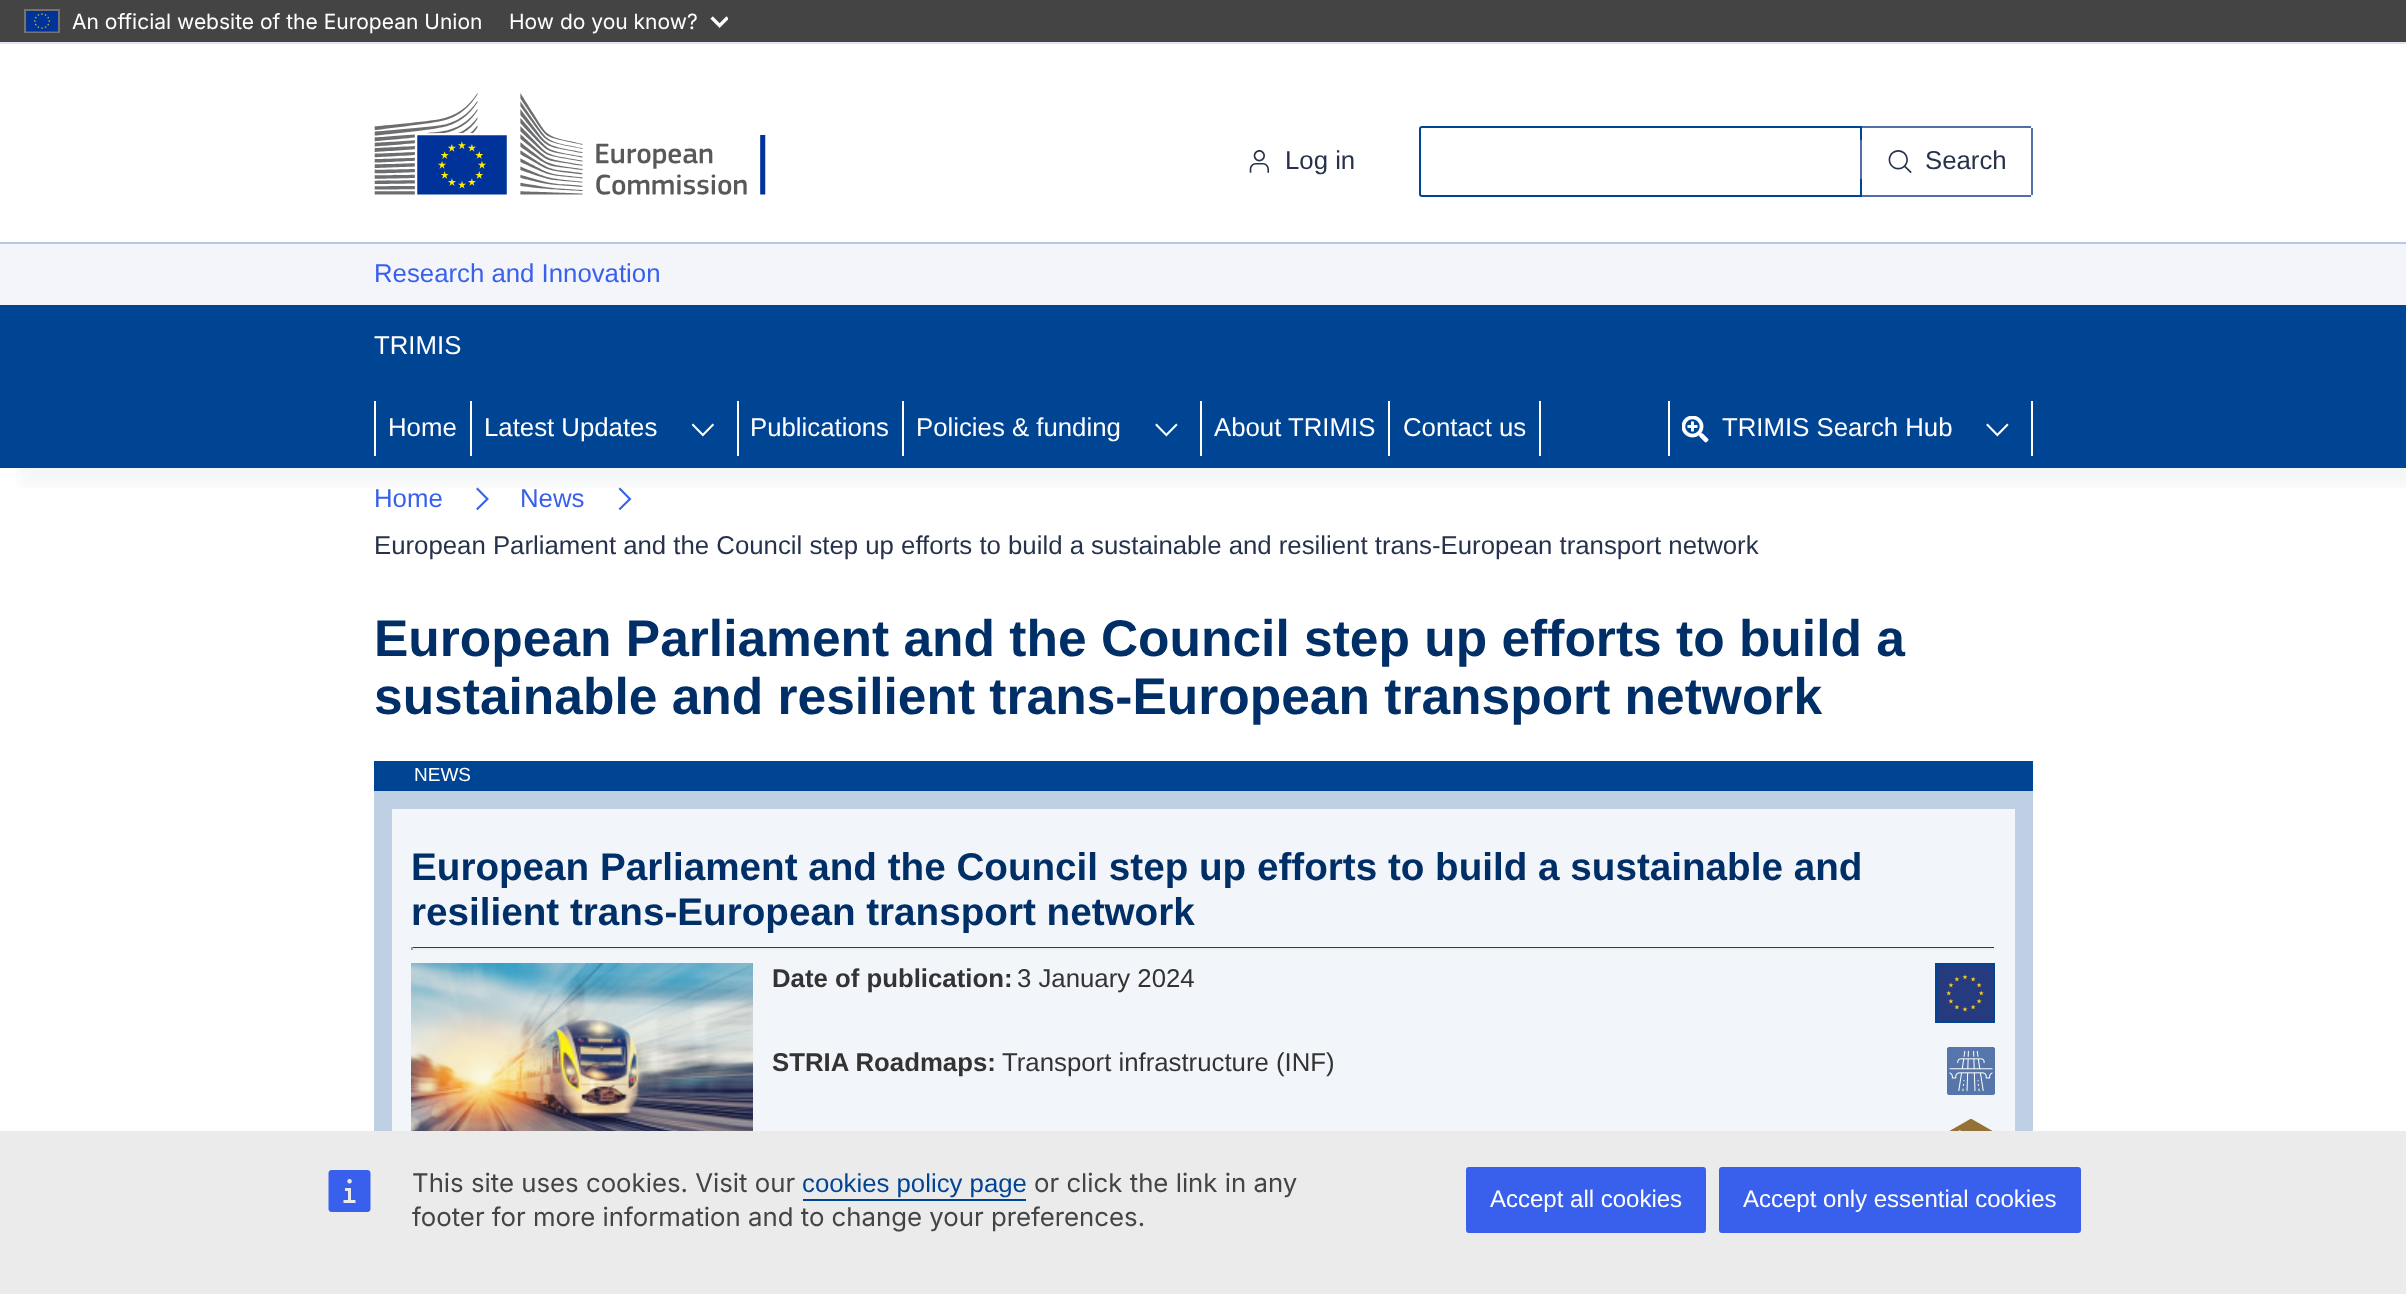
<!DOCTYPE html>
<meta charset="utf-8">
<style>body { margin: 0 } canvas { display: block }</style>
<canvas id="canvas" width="2406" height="1294"></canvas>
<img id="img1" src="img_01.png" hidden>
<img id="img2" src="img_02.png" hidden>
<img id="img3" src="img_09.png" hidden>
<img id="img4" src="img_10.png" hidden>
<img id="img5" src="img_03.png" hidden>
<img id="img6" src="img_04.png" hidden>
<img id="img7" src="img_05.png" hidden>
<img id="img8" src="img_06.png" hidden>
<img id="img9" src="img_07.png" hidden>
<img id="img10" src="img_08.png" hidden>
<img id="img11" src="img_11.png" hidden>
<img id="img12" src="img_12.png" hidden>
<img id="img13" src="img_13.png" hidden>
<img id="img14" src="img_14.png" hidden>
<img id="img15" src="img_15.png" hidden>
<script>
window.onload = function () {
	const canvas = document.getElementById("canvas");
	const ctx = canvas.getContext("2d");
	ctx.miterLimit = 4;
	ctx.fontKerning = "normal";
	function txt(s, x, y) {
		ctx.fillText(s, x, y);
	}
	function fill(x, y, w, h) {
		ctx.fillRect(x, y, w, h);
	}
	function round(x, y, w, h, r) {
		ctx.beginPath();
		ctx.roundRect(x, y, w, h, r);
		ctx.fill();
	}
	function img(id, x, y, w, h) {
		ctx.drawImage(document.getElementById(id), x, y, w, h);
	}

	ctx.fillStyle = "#FFFFFF";
	fill(0, 0, 2406, 1294);
	ctx.fillStyle = "#444444";
	fill(0, 0, 2406, 42);
	ctx.strokeStyle = "#737373";
	ctx.lineWidth = 2;
	ctx.strokeRect(25, 10, 34, 22);
	img("img1", 26, 11, 32, 21);
	img("img2", 710, 16, 18, 12);
	img("img3", 476, 487, 13, 24);
	img("img4", 618, 487, 14, 24);
	ctx.save();
	ctx.beginPath();
	ctx.rect(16, 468, 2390, 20);
	ctx.clip();
	ctx.fillStyle = "rgba(38, 50, 75, 0.05)";
	ctx.filter = "blur(9px)";
	ctx.beginPath();
	ctx.rect(18, 60, 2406, 426);
	ctx.fill();
	ctx.filter = "none";
	ctx.restore();
	ctx.fillStyle = "#E0E5F5";
	fill(0, 42, 2406, 2);
	img("img5", 374, 93, 392, 102);
	img("img6", 1249, 150, 21, 23);
	ctx.beginPath();
	ctx.roundRect(1420, 127, 441, 69, [2, 0, 0, 2]);
	ctx.strokeStyle = "#004494";
	ctx.stroke();
	ctx.fillStyle = "#546FA6";
	fill(1862, 126, 169, 2);
	fill(2031, 128, 2, 67);
	fill(1862, 195, 169, 2);
	fill(1860, 140, 2, 39);
	img("img7", 1888, 150, 24, 24);
	ctx.fillStyle = "#F3F5FB";
	fill(0, 244, 2406, 61);
	ctx.fillStyle = "#B9C5E9";
	fill(0, 242, 2406, 2);
	ctx.fillStyle = "#004494";
	fill(0, 305, 2406, 163);
	ctx.fillStyle = "#FFFFFF";
	fill(374, 401, 2, 55);
	fill(470, 401, 2, 55);
	img("img8", 691, 423, 23, 14);
	fill(737, 401, 2, 55);
	fill(902, 401, 2, 55);
	img("img9", 1155, 423, 23, 14);
	fill(1200, 401, 2, 55);
	fill(1388, 401, 2, 55);
	fill(1539, 401, 2, 55);
	fill(1668, 401, 2, 55);
	img("img10", 1682, 416, 27, 27);
	img("img9", 1986, 423, 23, 14);
	fill(2031, 401, 2, 55);
	ctx.fillStyle = "#004494";
	fill(374, 761, 1659, 30);
	ctx.fillStyle = "#F2F5F9";
	fill(392, 809, 1623, 322);
	ctx.strokeStyle = "#BFD0E4";
	ctx.lineWidth = 18;
	ctx.strokeRect(383, 800, 1641, 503);
	ctx.fillStyle = "#004494";
	fill(411, 947, 1584, 1);
	ctx.fillStyle = "#EEEEEE";
	fill(1994, 947, 2, 3);
	fill(411, 948, 1584, 2);
	ctx.fillStyle = "#9F9F9F";
	fill(411, 947, 2, 3);
	img("img11", 411, 963, 342, 168);
	ctx.strokeStyle = "#004494";
	ctx.lineWidth = 2;
	ctx.strokeRect(1936, 964, 58, 58);
	img("img12", 1937, 965, 56, 56);
	img("img13", 1947, 1047, 48, 48);
	img("img14", 1949, 1119, 44, 12);
	ctx.fillStyle = "#EBEBEB";
	fill(0, 1131, 2406, 163);
	img("img15", 328, 1170, 43, 42);
	ctx.fillStyle = "#004494";
	fill(803, 1199, 223, 2);
	ctx.fillStyle = "#3860ED";
	round(1466, 1167, 240, 66, 3);
	round(1719, 1167, 362, 66, 3);
	ctx.font = "21px Inter";
	ctx.fillStyle = "#FFFFFF";
	txt("An official website of the European Union", 72, 29);
	txt("How do you know?", 509, 29);
	ctx.font = "25.77px Liberation Sans";
	ctx.fillStyle = "#26324B";
	txt("Log in", 1285, 169);
	txt("Search", 1925, 169);
	ctx.fillStyle = "#3860ED";
	txt("Research and Innovation", 374, 282);
	ctx.fillStyle = "#FFFFFF";
	txt("TRIMIS", 374, 354);
	txt("Home", 388, 436);
	txt("Latest Updates", 484, 436);
	txt("Publications", 750, 436);
	txt("Policies & funding", 916, 436);
	txt("About TRIMIS", 1214, 436);
	txt("Contact us", 1403, 436);
	txt("TRIMIS Search Hub", 1722, 436);
	ctx.fillStyle = "#3860ED";
	txt("Home", 374, 507);
	txt("News", 520, 507);
	ctx.fillStyle = "#26324B";
	txt("European Parliament and the Council step up efforts to build a sustainable and resilient trans-European transport network", 374, 554);
	ctx.font = "bold 51.5px Liberation Sans";
	ctx.fillStyle = "#002F67";
	txt("European Parliament and the Council step up efforts to build a", 374, 656);
	txt("sustainable and resilient trans-European transport network", 374, 714);
	ctx.font = "19px Liberation Sans";
	ctx.fillStyle = "#FFFFFF";
	txt("NEWS", 414, 781);
	ctx.font = "bold 38.65px Liberation Sans";
	ctx.fillStyle = "#002F67";
	txt("European Parliament and the Council step up efforts to build a sustainable and", 411, 880);
	txt("resilient trans-European transport network", 411, 925);
	ctx.font = "bold 25.77px Liberation Sans";
	ctx.fillStyle = "#333333";
	txt("Date of publication:", 772, 987);
	ctx.font = "25.77px Liberation Sans";
	txt("3 January 2024", 1017, 987);
	ctx.font = "bold 25.77px Liberation Sans";
	txt("STRIA Roadmaps:", 772, 1071);
	ctx.font = "25.77px Liberation Sans";
	txt("Transport infrastructure (INF)", 1002, 1071);
	ctx.font = "25.77px Inter";
	ctx.fillStyle = "#444444";
	txt("This site uses cookies. Visit our", 412, 1192);
	ctx.font = "25.77px Liberation Sans";
	ctx.fillStyle = "#004494";
	txt("cookies policy page", 802, 1192);
	ctx.font = "25.77px Inter";
	ctx.fillStyle = "#444444";
	txt("or click the link in any", 1034, 1192);
	txt("footer for more information and to change your preferences.", 412, 1226);
	ctx.font = "24px Liberation Sans";
	ctx.fillStyle = "#FFFFFF";
	txt("Accept all cookies", 1490, 1207);
	txt("Accept only essential cookies", 1743, 1207);
};
</script>
